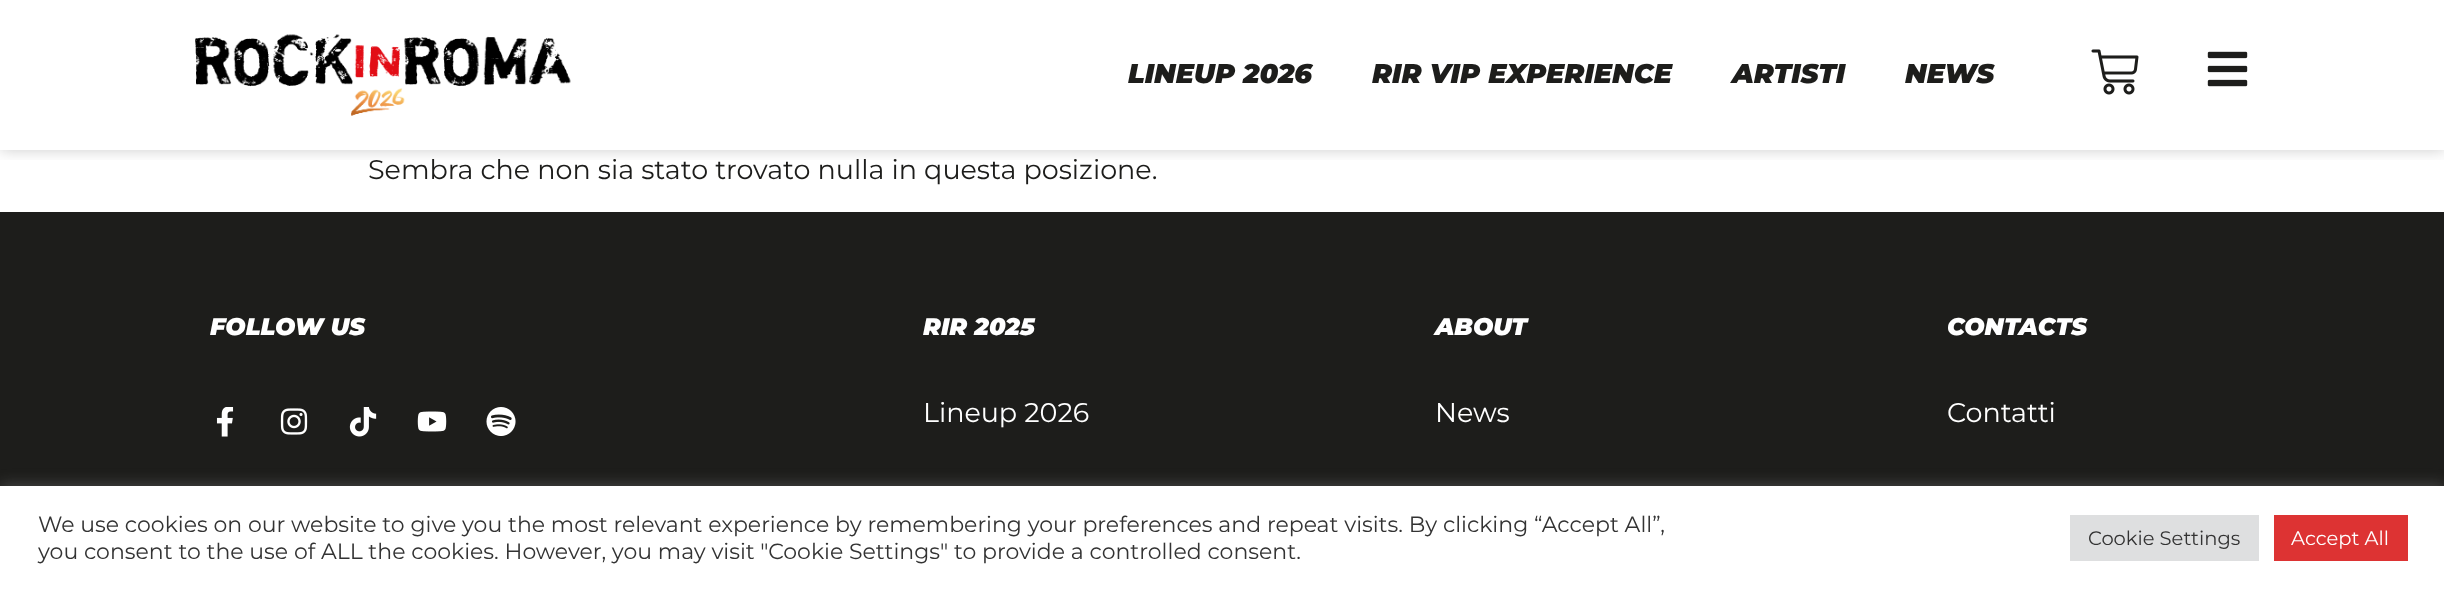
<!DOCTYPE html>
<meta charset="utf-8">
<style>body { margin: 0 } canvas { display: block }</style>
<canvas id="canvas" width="2444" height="589"></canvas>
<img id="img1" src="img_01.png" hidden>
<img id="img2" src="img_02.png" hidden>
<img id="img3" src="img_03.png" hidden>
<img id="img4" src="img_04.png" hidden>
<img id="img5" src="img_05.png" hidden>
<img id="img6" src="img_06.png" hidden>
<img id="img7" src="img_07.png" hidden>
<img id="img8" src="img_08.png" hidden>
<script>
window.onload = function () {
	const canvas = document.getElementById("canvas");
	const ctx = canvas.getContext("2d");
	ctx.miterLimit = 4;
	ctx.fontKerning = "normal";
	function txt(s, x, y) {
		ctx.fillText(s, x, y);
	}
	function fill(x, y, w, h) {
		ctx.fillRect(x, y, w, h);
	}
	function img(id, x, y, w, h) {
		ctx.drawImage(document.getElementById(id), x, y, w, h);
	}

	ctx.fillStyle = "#FFFFFF";
	fill(0, 0, 2444, 589);
	ctx.save();
	ctx.beginPath();
	ctx.rect(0, 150, 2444, 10);
	ctx.clip();
	ctx.fillStyle = "rgba(0, 0, 0, 0.2)";
	ctx.filter = "blur(7.5px)";
	ctx.beginPath();
	ctx.rect(0, 0, 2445, 150);
	ctx.fill();
	ctx.filter = "none";
	ctx.restore();
	img("img1", 195, 34, 376, 82);
	img("img2", 2091, 49, 48, 46);
	img("img3", 2207, 51, 41, 36);
	ctx.fillStyle = "#1D1D1B";
	fill(0, 212, 2444, 274);
	img("img4", 216, 407, 18, 30);
	img("img5", 280, 408, 28, 27);
	img("img6", 349, 407, 28, 30);
	img("img7", 417, 411, 30, 21);
	img("img8", 486, 407, 30, 29);
	ctx.fillStyle = "rgba(172, 171, 171, 0.3)";
	ctx.filter = "blur(7.5px)";
	ctx.beginPath();
	ctx.rect(0, 485, 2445, 103);
	ctx.fill();
	ctx.filter = "none";
	ctx.fillStyle = "#FFFFFF";
	fill(0, 486, 2444, 103);
	ctx.fillStyle = "#DEDFE0";
	fill(2070, 515, 189, 46);
	ctx.fillStyle = "#DD3333";
	fill(2274, 515, 134, 46);
	ctx.font = "italic 900 27px Montserrat";
	ctx.fillStyle = "#1D1D1B";
	txt("LINEUP 2026", 1128, 83);
	txt("RIR VIP EXPERIENCE", 1372, 83);
	txt("ARTISTI", 1732, 83);
	txt("NEWS", 1905, 83);
	ctx.font = "27px Montserrat";
	txt("Sembra che non sia stato trovato nulla in questa posizione.", 368, 179);
	ctx.font = "italic 900 24px Montserrat";
	ctx.fillStyle = "#FFFFFF";
	txt("FOLLOW US", 210, 335);
	txt("RIR 2025", 923, 335);
	ctx.font = "27px Montserrat";
	txt("Lineup 2026", 923, 422);
	ctx.font = "italic 900 24px Montserrat";
	txt("ABOUT", 1435, 335);
	ctx.font = "27px Montserrat";
	txt("News", 1435, 422);
	ctx.font = "italic 900 24px Montserrat";
	txt("CONTACTS", 1947, 335);
	ctx.font = "27px Montserrat";
	txt("Contatti", 1947, 422);
	ctx.font = "22px Montserrat";
	ctx.fillStyle = "#333333";
	txt("We use cookies on our website to give you the most relevant experience by remembering your preferences and repeat visits. By clicking “Accept All”,", 38, 532);
	txt("you consent to the use of ALL the cookies. However, you may visit \"Cookie Settings\" to provide a controlled consent.", 38, 559);
	ctx.font = "19.5px Montserrat";
	txt("Cookie Settings", 2088, 545);
	ctx.fillStyle = "#FFFFFF";
	txt("Accept All", 2291, 545);
};
</script>
